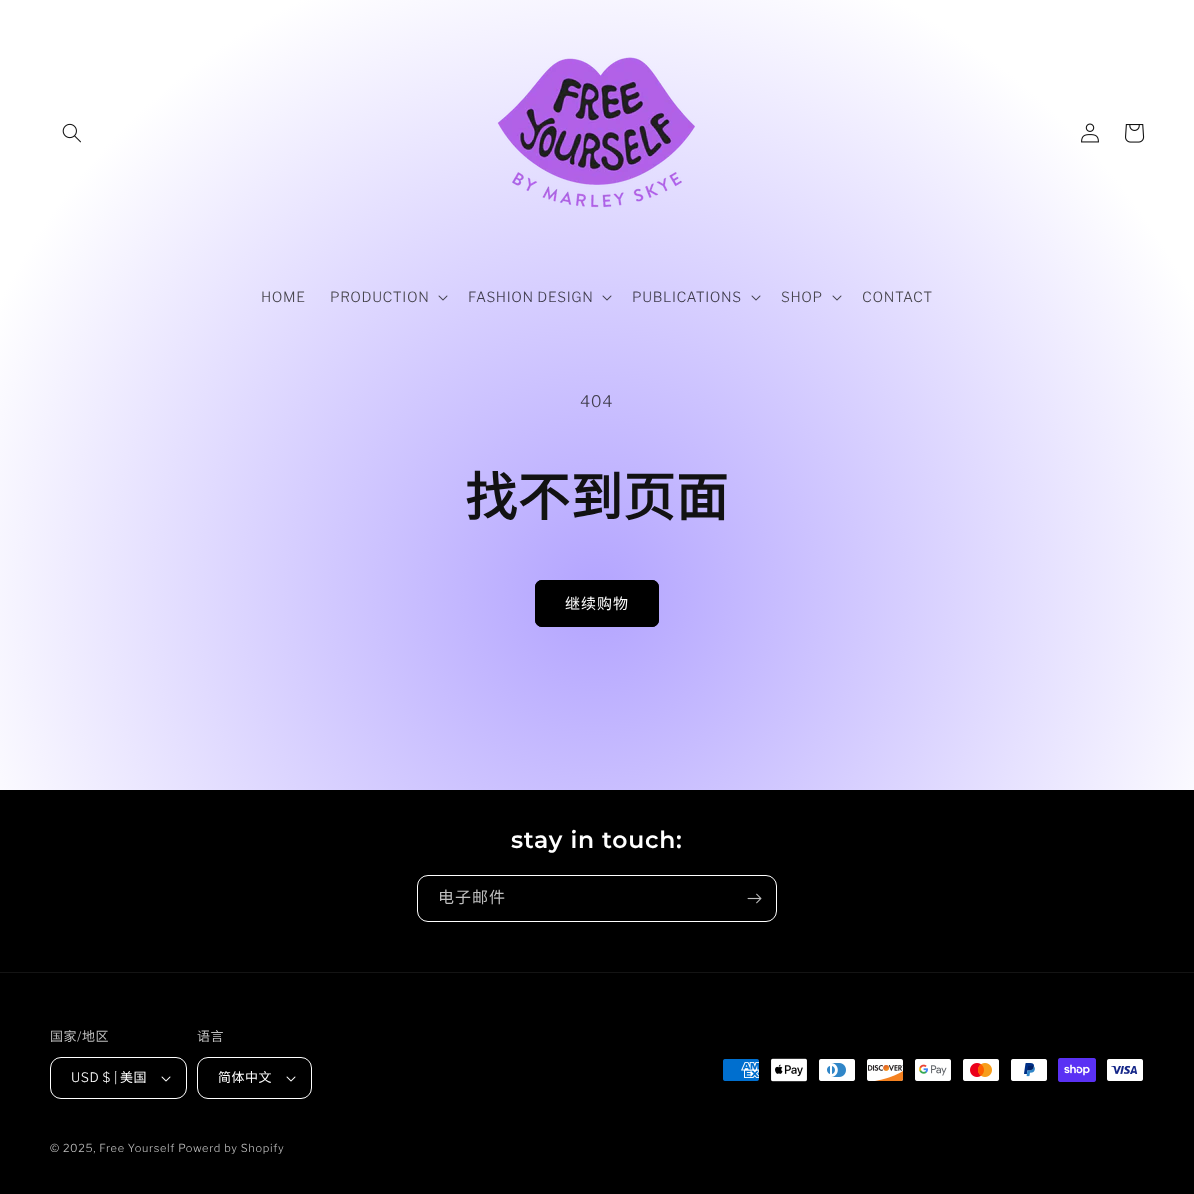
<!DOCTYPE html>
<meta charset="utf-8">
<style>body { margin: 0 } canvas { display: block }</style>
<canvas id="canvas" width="1194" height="1194"></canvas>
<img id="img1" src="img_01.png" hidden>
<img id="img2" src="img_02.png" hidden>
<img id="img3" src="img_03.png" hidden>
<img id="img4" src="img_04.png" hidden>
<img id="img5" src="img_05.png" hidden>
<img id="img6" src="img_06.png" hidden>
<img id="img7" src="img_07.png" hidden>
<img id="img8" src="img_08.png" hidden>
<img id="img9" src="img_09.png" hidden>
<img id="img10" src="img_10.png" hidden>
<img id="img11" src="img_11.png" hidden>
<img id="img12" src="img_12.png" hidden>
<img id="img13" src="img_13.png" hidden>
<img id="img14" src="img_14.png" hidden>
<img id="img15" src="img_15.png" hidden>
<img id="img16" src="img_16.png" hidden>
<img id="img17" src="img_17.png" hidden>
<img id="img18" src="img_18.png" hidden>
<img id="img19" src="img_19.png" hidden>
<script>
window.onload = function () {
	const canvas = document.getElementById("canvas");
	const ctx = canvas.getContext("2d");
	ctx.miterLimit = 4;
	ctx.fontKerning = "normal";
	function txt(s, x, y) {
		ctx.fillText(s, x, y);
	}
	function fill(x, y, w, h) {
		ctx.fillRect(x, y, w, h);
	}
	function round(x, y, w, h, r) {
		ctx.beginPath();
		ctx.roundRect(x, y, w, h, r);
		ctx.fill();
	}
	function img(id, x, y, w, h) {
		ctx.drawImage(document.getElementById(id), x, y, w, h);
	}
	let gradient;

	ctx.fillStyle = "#FFFFFF";
	fill(0, 0, 1194, 1194);
	gradient = ctx.createRadialGradient(597, 597, 0, 597, 597, 844);
	gradient.addColorStop(0, "#B3A4FF");
	gradient.addColorStop(0.79, "#FFFFFF");
	gradient.addColorStop(0.97, "#FFFFFF");
	ctx.fillStyle = gradient;
	fill(0, 0, 1194, 790);
	img("img1", 62, 123, 19, 20);
	img("img2", 497, 57, 198, 151);
	img("img3", 1081, 123, 18, 20);
	img("img4", 1125, 124, 20, 19);
	img("img5", 438, 295, 10, 6);
	img("img6", 602, 295, 10, 6);
	img("img7", 751, 295, 10, 6);
	img("img8", 832, 295, 10, 6);
	ctx.fillStyle = "#000000";
	round(535, 580, 124, 47, 7);
	ctx.beginPath();
	ctx.roundRect(535.5, 580.5, 123, 46, 6.5);
	ctx.strokeStyle = "#000000";
	ctx.stroke();
	fill(0, 790, 1194, 404);
	ctx.beginPath();
	ctx.roundRect(417.5, 875.5, 359, 46, 10.5);
	ctx.strokeStyle = "#FFFFFF";
	ctx.stroke();
	img("img9", 747, 893, 15, 11);
	ctx.fillStyle = "#141414";
	fill(0, 972, 1194, 1);
	img("img10", 161, 1076, 10, 6);
	ctx.beginPath();
	ctx.roundRect(50.5, 1057.5, 136, 41, 10.5);
	ctx.stroke();
	img("img10", 286, 1076, 10, 6);
	ctx.beginPath();
	ctx.roundRect(197.5, 1057.5, 114, 41, 10.5);
	ctx.stroke();
	img("img11", 723, 1059, 36, 22);
	img("img12", 771, 1058, 36, 24);
	img("img13", 819, 1059, 36, 22);
	img("img14", 867, 1059, 37, 22);
	img("img15", 915, 1059, 36, 22);
	img("img16", 963, 1059, 36, 22);
	img("img17", 1011, 1059, 36, 22);
	img("img18", 1058, 1058, 38, 24);
	img("img19", 1107, 1059, 36, 22);
	ctx.letterSpacing = "0.6px";
	ctx.font = "300 14px Libre Franklin";
	ctx.fillStyle = "#47454D";
	txt("HOME", 261, 302);
	txt("PRODUCTION", 330, 302);
	ctx.fillStyle = "#403D4D";
	txt("FASHION DESIGN", 468, 302);
	txt("PUBLICATIONS", 632, 302);
	ctx.fillStyle = "#47454D";
	txt("SHOP", 781, 302);
	txt("CONTACT", 862, 302);
	ctx.font = "300 16px Libre Franklin";
	ctx.fillStyle = "#403D4D";
	txt("404", 580, 407);
	ctx.letterSpacing = "0.75px";
	ctx.font = "bold 52px Noto Sans CJK SC";
	ctx.fillStyle = "#121212";
	txt("找不到页面", 465, 516);
	ctx.letterSpacing = "1px";
	ctx.font = "15px Noto Sans CJK SC";
	ctx.fillStyle = "#FFFFFF";
	txt("继续购物", 565, 609);
	ctx.letterSpacing = "0.75px";
	ctx.font = "600 23.5px Montserrat";
	txt("stay in touch:", 511, 848);
	ctx.letterSpacing = "1px";
	ctx.font = "16px Noto Sans CJK SC";
	ctx.fillStyle = "#BFBFBF";
	txt("电子邮件", 438, 903);
	ctx.letterSpacing = "0.5px";
	ctx.font = "13px Noto Sans CJK SC";
	txt("国家", 50, 1041);
	ctx.font = "300 13px Libre Franklin";
	txt("/", 77, 1041);
	ctx.font = "13px Noto Sans CJK SC";
	txt("地区", 82, 1041);
	ctx.font = "300 13px Libre Franklin";
	ctx.fillStyle = "#FFFFFF";
	txt("USD $ |", 71, 1082);
	ctx.font = "13px Noto Sans CJK SC";
	txt("美国", 120, 1082);
	ctx.fillStyle = "#BFBFBF";
	txt("语言", 197, 1041);
	ctx.fillStyle = "#FFFFFF";
	txt("简体中文", 218, 1082);
	ctx.letterSpacing = "0.7px";
	ctx.font = "300 11px Libre Franklin";
	ctx.fillStyle = "#BFBFBF";
	txt("© 2025, Free Yourself Powerd by Shopify", 50, 1152);
};
</script>
